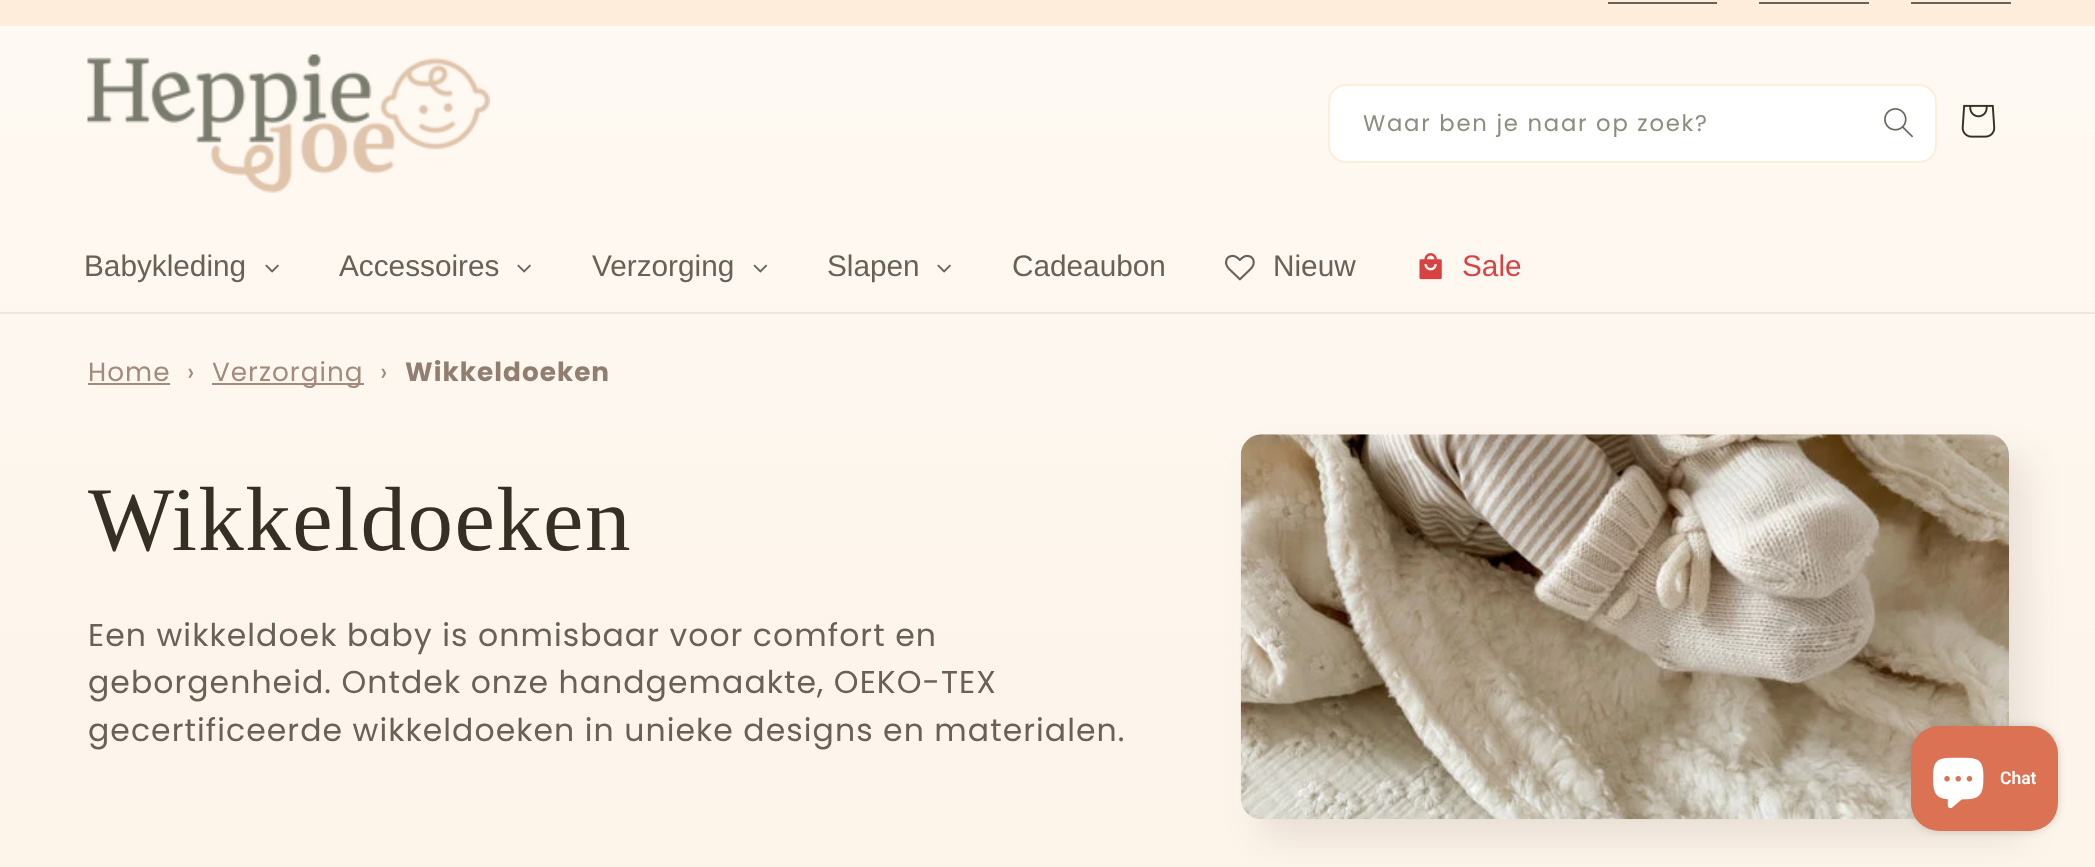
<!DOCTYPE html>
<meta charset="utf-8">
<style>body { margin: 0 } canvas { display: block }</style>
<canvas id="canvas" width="2095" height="867"></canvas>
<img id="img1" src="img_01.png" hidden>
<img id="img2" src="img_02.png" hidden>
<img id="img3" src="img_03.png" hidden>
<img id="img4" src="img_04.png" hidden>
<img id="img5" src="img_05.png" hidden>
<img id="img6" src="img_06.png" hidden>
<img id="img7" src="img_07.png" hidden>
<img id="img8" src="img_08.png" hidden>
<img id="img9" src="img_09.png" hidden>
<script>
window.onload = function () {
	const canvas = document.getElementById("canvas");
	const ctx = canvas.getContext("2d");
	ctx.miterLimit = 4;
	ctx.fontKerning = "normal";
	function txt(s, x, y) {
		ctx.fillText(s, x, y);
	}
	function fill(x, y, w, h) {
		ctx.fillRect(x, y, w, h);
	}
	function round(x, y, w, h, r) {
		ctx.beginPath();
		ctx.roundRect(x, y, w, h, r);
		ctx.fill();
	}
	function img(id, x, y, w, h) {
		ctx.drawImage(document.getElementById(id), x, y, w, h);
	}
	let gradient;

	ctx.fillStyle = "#FFFFFF";
	fill(0, 0, 2095, 867);
	gradient = ctx.createLinearGradient(1048, 0, 1048, 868);
	gradient.addColorStop(0.05, "#FEF9F2");
	gradient.addColorStop(1, "#FDF4EA");
	ctx.fillStyle = gradient;
	fill(0, 26, 2095, 841);
	ctx.fillStyle = "#FEEDDB";
	fill(0, 0, 2095, 26);
	ctx.fillStyle = "#686258";
	fill(1608, 2, 109, 2);
	fill(1759, 2, 110, 2);
	fill(1911, 2, 100, 2);
	ctx.fillStyle = "#EEE7DF";
	fill(0, 312, 2095, 2);
	img("img1", 87, 54, 403, 139);
	ctx.fillStyle = "#FFFFFF";
	ctx.beginPath();
	ctx.roundRect(1329, 85, 607, 77, 17);
	ctx.fill();
	ctx.strokeStyle = "#FEEDDB";
	ctx.lineWidth = 2;
	ctx.stroke();
	img("img2", 1884, 108, 29, 30);
	img("img3", 1961, 104, 35, 34);
	img("img4", 265, 264, 14, 9);
	img("img4", 517, 264, 14, 9);
	img("img5", 753, 264, 15, 9);
	img("img4", 937, 264, 14, 9);
	img("img6", 1225, 254, 30, 27);
	img("img7", 1419, 253, 23, 27);
	ctx.fillStyle = "#A48A7B";
	fill(88, 383, 82, 2);
	fill(212, 383, 152, 2);
	ctx.fillStyle = "rgba(54, 48, 36, 0.1)";
	ctx.filter = "blur(17.5px)";
	ctx.beginPath();
	ctx.roundRect(1258, 455, 769, 385, 21);
	ctx.fill();
	ctx.filter = "none";
	gradient = ctx.createLinearGradient(1048, 0, 1048, 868);
	gradient.addColorStop(0.05, "#FEF9F2");
	gradient.addColorStop(1, "#FDF4EA");
	ctx.fillStyle = gradient;
	round(1241, 434, 768, 385, 21);
	img("img8", 1240, 434, 769, 386);
	ctx.fillStyle = "rgba(0, 0, 0, 0.15)";
	ctx.filter = "blur(4.5px)";
	ctx.beginPath();
	ctx.roundRect(1911, 726, 147, 105, 28);
	ctx.fill();
	ctx.filter = "none";
	ctx.fillStyle = "#DA7253";
	round(1911, 726, 147, 105, 28);
	img("img9", 1933, 757, 51, 52);
	ctx.letterSpacing = "1.75px";
	ctx.font = "22.75px Poppins";
	ctx.fillStyle = "#8C8C7F";
	txt("Waar ben je naar op zoek?", 1363, 131);
	ctx.letterSpacing = "0px";
	ctx.font = "29.75px Liberation Sans";
	ctx.fillStyle = "#686156";
	txt("Babykleding", 84, 276);
	txt("Accessoires", 339, 276);
	txt("Verzorging", 592, 276);
	txt("Slapen", 827, 276);
	txt("Cadeaubon", 1012, 276);
	txt("Nieuw", 1273, 276);
	ctx.fillStyle = "#D94242";
	txt("Sale", 1462, 276);
	ctx.letterSpacing = "1.05px";
	ctx.font = "26.25px Poppins";
	ctx.fillStyle = "#A48A7B";
	txt("Home", 88, 381);
	txt("›", 187, 381);
	txt("Verzorging", 212, 381);
	txt("›", 380, 381);
	ctx.font = "bold 26.25px Poppins";
	ctx.fillStyle = "#917E70";
	txt("Wikkeldoeken", 405, 381);
	ctx.letterSpacing = "1.4px";
	ctx.font = "91px Liberation Serif";
	ctx.fillStyle = "#363024";
	txt("Wikkeldoeken", 88, 550);
	ctx.letterSpacing = "1.05px";
	ctx.font = "31.5px Poppins";
	ctx.fillStyle = "#686156";
	txt("Een wikkeldoek baby is onmisbaar voor comfort en", 88, 646);
	txt("geborgenheid. Ontdek onze handgemaakte, OEKO-TEX", 88, 693);
	txt("gecertificeerde wikkeldoeken in unieke designs en materialen.", 88, 741);
	ctx.letterSpacing = "0px";
	ctx.font = "600 17.5px Roboto";
	ctx.fillStyle = "#FFFFFF";
	txt("Chat", 2000, 784);
};
</script>
